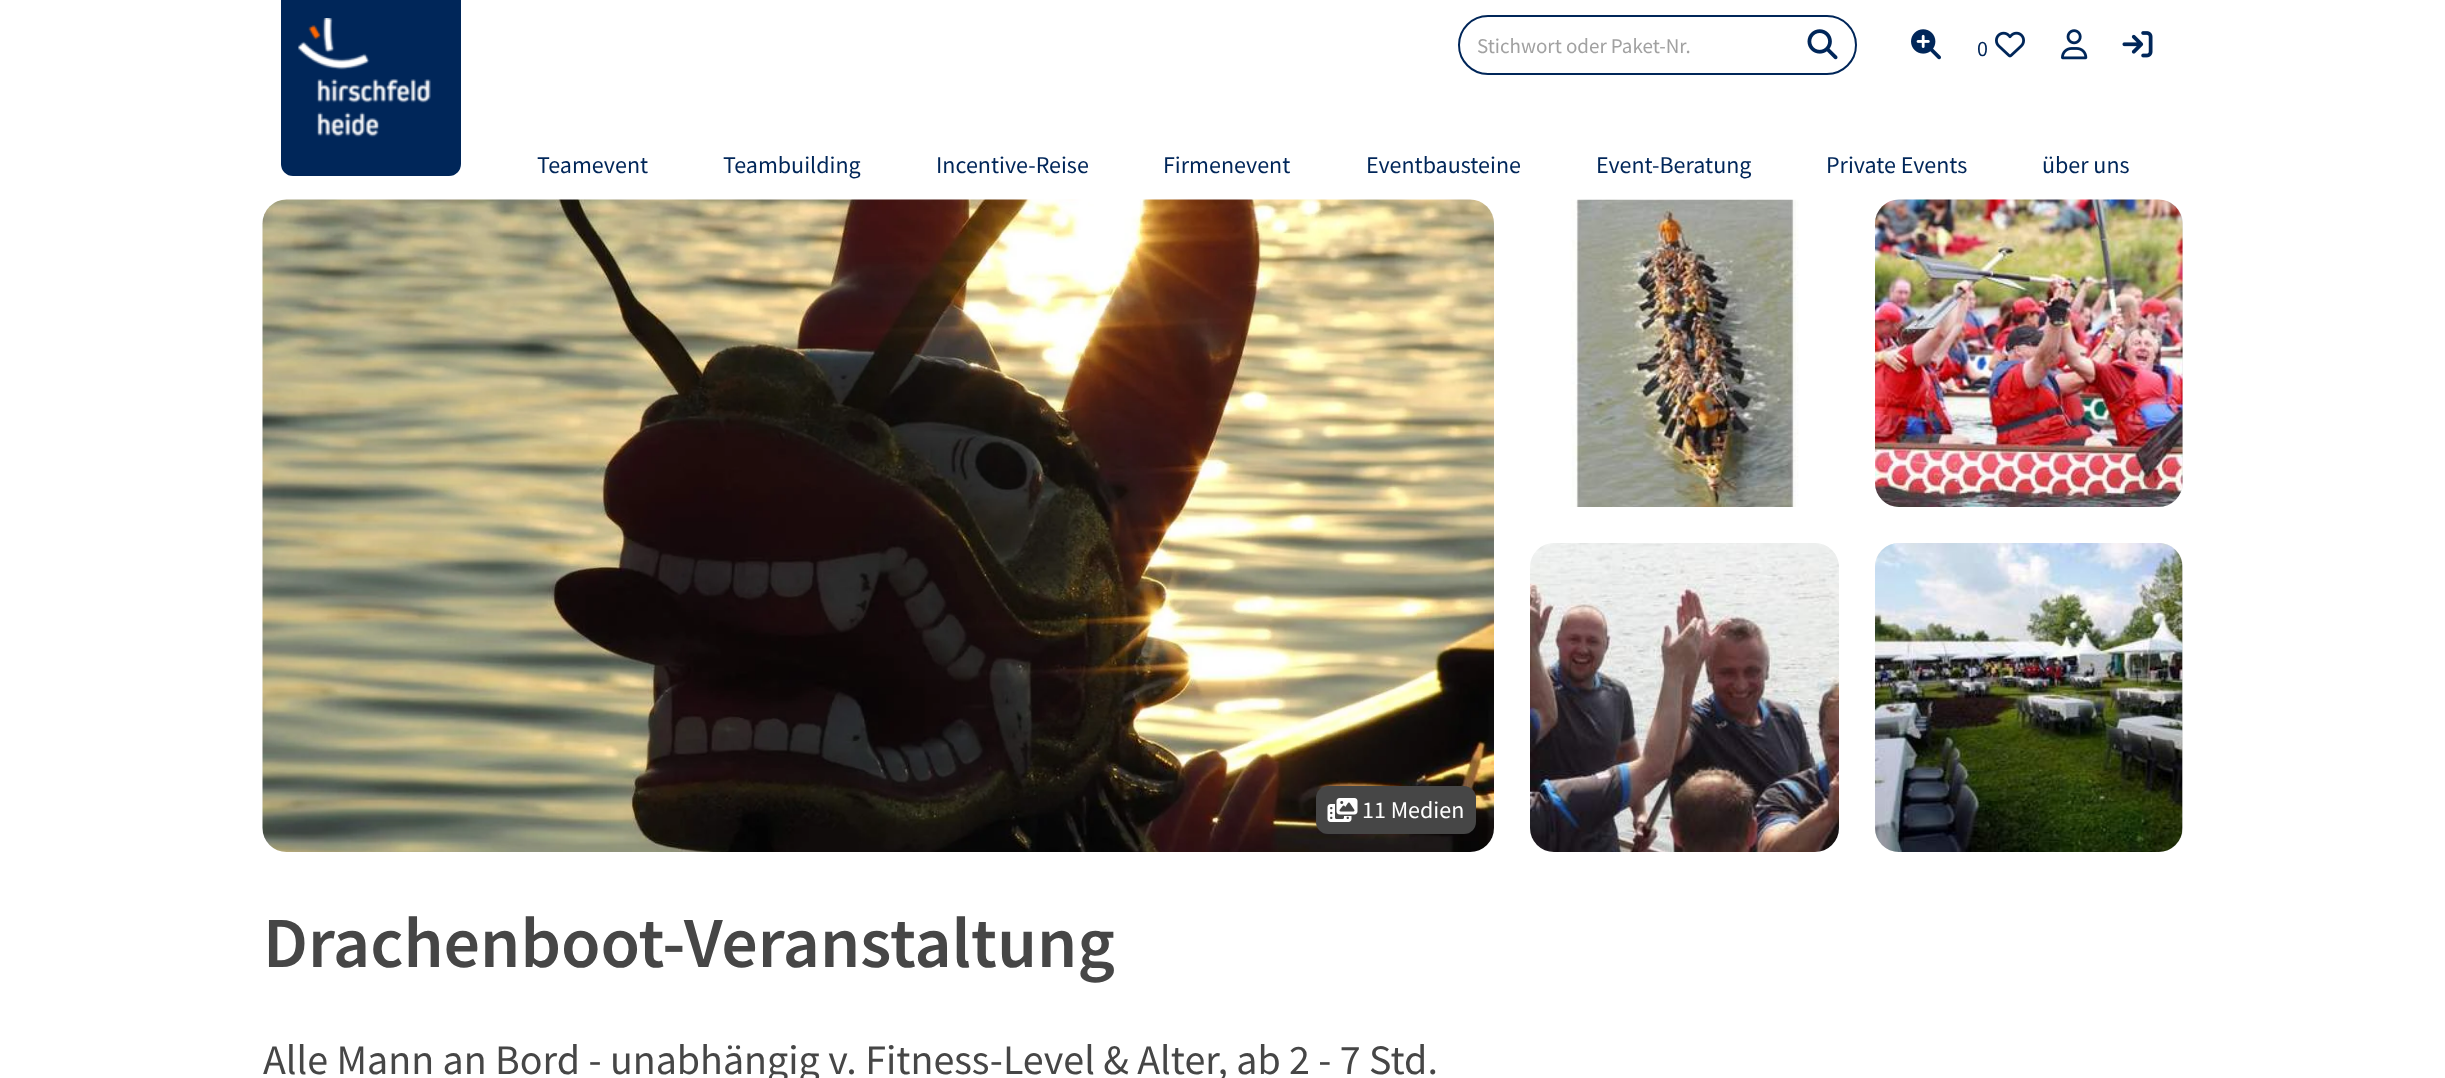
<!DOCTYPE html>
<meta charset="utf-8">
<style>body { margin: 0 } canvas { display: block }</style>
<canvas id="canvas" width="2445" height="1078"></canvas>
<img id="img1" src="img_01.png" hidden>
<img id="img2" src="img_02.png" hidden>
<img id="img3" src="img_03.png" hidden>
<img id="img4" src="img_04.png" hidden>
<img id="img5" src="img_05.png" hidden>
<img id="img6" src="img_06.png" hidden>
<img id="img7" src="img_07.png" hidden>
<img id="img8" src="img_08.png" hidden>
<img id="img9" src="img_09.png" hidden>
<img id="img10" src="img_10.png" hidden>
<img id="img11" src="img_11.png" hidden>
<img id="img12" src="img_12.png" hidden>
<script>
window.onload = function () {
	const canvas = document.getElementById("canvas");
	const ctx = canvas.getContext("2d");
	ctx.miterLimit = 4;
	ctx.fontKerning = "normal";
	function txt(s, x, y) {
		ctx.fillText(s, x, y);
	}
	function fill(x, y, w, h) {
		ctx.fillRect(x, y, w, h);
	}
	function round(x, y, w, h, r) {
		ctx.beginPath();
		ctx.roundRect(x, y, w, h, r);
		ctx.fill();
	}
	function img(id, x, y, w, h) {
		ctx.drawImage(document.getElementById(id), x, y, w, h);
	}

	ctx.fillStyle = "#FFFFFF";
	fill(0, 0, 2445, 1078);
	ctx.fillStyle = "#002659";
	ctx.beginPath();
	ctx.roundRect(281, 0, 180, 176, [0, 0, 12, 12]);
	ctx.fill();
	img("img1", 298, 18, 133, 119);
	ctx.beginPath();
	ctx.roundRect(1459, 16, 397, 58, 29);
	ctx.strokeStyle = "#002659";
	ctx.lineWidth = 2;
	ctx.stroke();
	img("img2", 1807, 29, 31, 31);
	img("img3", 1911, 29, 30, 31);
	img("img4", 1995, 31, 30, 27);
	img("img5", 2061, 29, 27, 31);
	img("img6", 2122, 31, 31, 27);
	img("img7", 1530, 199, 309, 308);
	ctx.fillStyle = "#E7E7E7";
	round(1875, 200, 308, 307, 24);
	img("img8", 1875, 199, 308, 308);
	img("img9", 262, 199, 1232, 653);
	ctx.fillStyle = "#464646";
	round(1316, 786, 160, 48, 12);
	img("img10", 1327, 798, 31, 24);
	img("img11", 1530, 543, 309, 309);
	ctx.fillStyle = "#E7E7E7";
	round(1875, 543, 308, 309, 24);
	img("img12", 1875, 543, 308, 309);
	ctx.font = "21px Source Sans Pro";
	ctx.fillStyle = "#A1A1A1";
	txt("Stichwort oder Paket-Nr.", 1477, 53);
	ctx.font = "22px Source Sans Pro";
	ctx.fillStyle = "#002659";
	txt("0", 1977, 56);
	ctx.font = "24px Source Sans Pro";
	txt("Teamevent", 537, 173);
	txt("Teambuilding", 723, 173);
	txt("Incentive-Reise", 936, 173);
	txt("Firmenevent", 1163, 173);
	txt("Eventbausteine", 1366, 173);
	txt("Event-Beratung", 1596, 173);
	txt("Private Events", 1826, 173);
	txt("über uns", 2042, 173);
	ctx.fillStyle = "#FFFFFF";
	txt("11 Medien", 1362, 818);
	ctx.font = "600 72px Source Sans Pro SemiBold";
	ctx.fillStyle = "#464646";
	txt("Drachenboot-Veranstaltung", 263, 967);
	ctx.font = "42px Source Sans Pro";
	txt("Alle Mann an Bord - unabhängig v. Fitness-Level & Alter, ab 2 - 7 Std.", 263, 1074);
};
</script>
